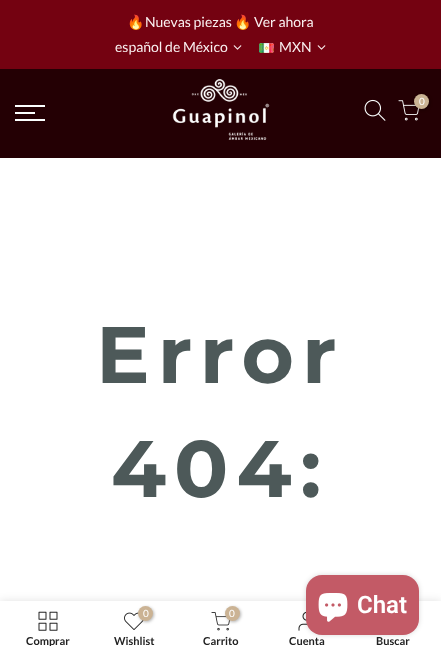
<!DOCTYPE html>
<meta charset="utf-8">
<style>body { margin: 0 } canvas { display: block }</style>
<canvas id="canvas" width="441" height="656"></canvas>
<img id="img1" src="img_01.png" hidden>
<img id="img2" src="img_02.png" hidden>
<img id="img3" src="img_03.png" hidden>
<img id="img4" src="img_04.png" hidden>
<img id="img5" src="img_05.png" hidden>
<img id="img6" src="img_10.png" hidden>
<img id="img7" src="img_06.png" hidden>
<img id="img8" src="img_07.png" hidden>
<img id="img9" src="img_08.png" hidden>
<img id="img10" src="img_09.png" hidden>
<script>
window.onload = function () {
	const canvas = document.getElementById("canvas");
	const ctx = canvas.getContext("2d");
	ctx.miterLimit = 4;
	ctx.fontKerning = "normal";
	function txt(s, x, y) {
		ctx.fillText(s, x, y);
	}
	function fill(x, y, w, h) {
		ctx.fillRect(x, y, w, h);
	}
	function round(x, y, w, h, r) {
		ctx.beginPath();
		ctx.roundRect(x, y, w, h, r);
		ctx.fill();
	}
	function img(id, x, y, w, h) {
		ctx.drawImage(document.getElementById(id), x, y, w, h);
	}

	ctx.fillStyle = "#FFFFFF";
	fill(0, 0, 441, 656);
	ctx.fillStyle = "#740211";
	fill(0, 0, 441, 69);
	img("img1", 233, 45, 9, 5);
	img("img2", 259, 43, 15, 10);
	img("img1", 317, 45, 9, 5);
	ctx.fillStyle = "#240004";
	fill(0, 69, 441, 89);
	img("img3", 172, 79, 98, 62);
	img("img4", 364, 99, 22, 22);
	img("img5", 398, 100, 21, 21);
	ctx.fillStyle = "rgba(0, 0, 0, 0.3)";
	ctx.filter = "blur(1.5px)";
	ctx.beginPath();
	ctx.roundRect(415, 95, 15, 15, 7.5);
	ctx.fill();
	ctx.filter = "none";
	ctx.fillStyle = "#CBB394";
	ctx.beginPath();
	ctx.arc(421.5, 101.5, 7.5, 0, Math.PI * 2);
	ctx.fill();
	ctx.fillStyle = "#FCFFFF";
	fill(15, 105, 30, 2);
	fill(15, 112, 20, 2);
	fill(15, 119, 30, 2);
	ctx.fillStyle = "rgba(0, 0, 0, 0.12)";
	ctx.filter = "blur(4.5px)";
	ctx.beginPath();
	ctx.rect(0, 601, 441, 55);
	ctx.fill();
	ctx.filter = "none";
	ctx.fillStyle = "#FFFFFF";
	fill(0, 601, 441, 55);
	img("img6", 298, 611, 10, 20);
	ctx.fillStyle = "rgba(0, 0, 0, 0.15)";
	ctx.filter = "blur(2.5px)";
	ctx.beginPath();
	ctx.roundRect(306, 575, 113, 60, 16);
	ctx.fill();
	ctx.filter = "none";
	ctx.fillStyle = "#C35A66";
	round(306, 575, 113, 60, 16);
	img("img7", 318, 593, 30, 29);
	img("img8", 38, 611, 20, 20);
	img("img9", 124, 612, 20, 18);
	ctx.fillStyle = "rgba(0, 0, 0, 0.3)";
	ctx.filter = "blur(1.5px)";
	ctx.beginPath();
	ctx.roundRect(139, 607, 15, 15, 7.5);
	ctx.fill();
	ctx.filter = "none";
	ctx.fillStyle = "#CBB394";
	ctx.beginPath();
	ctx.arc(145.5, 613.5, 7.5, 0, Math.PI * 2);
	ctx.fill();
	img("img10", 211, 612, 19, 19);
	ctx.fillStyle = "rgba(0, 0, 0, 0.3)";
	ctx.filter = "blur(1.5px)";
	ctx.beginPath();
	ctx.roundRect(226, 607, 15, 15, 7.5);
	ctx.fill();
	ctx.filter = "none";
	ctx.fillStyle = "#CBB394";
	ctx.beginPath();
	ctx.arc(232.5, 613.5, 7.5, 0, Math.PI * 2);
	ctx.fill();
	ctx.font = "14px Noto Color Emoji";
	ctx.fillStyle = "#FAF1F1";
	txt("🔥", 127, 27);
	ctx.font = "14px Lato";
	txt("Nuevas piezas", 145, 27);
	ctx.font = "14px Noto Color Emoji";
	txt("🔥", 234, 27);
	ctx.font = "14px Lato";
	txt("Ver ahora", 254, 27);
	txt("español de México", 115, 52);
	txt("MXN", 279, 52);
	ctx.font = "10px Lato";
	ctx.fillStyle = "#FFFFFF";
	txt("0", 419, 105);
	ctx.letterSpacing = "8px";
	ctx.font = "bold 80px Montserrat";
	ctx.fillStyle = "#4D5959";
	txt("Error", 96, 383);
	txt("404:", 111, 497);
	ctx.letterSpacing = "0px";
	ctx.font = "600 24px Roboto";
	ctx.fillStyle = "#FFFFFF";
	txt("Chat", 357, 613);
	ctx.save();
	ctx.beginPath();
	ctx.rect(15, 635, 66, 11);
	ctx.clip();
	ctx.font = "bold 11px Lato";
	ctx.fillStyle = "#222222";
	txt("Comprar", 26, 645);
	ctx.restore();
	ctx.font = "10px Lato";
	txt("0", 143, 617);
	ctx.font = "bold 11px Lato";
	ctx.fillStyle = "#222222";
	txt("Wishlist", 114, 645);
	ctx.font = "10px Lato";
	ctx.fillStyle = "#FFFFFF";
	txt("0", 229, 617);
	ctx.font = "bold 11px Lato";
	ctx.fillStyle = "#222222";
	txt("Carrito", 203, 645);
	txt("Cuenta", 289, 645);
	txt("Buscar", 376, 645);
};
</script>
